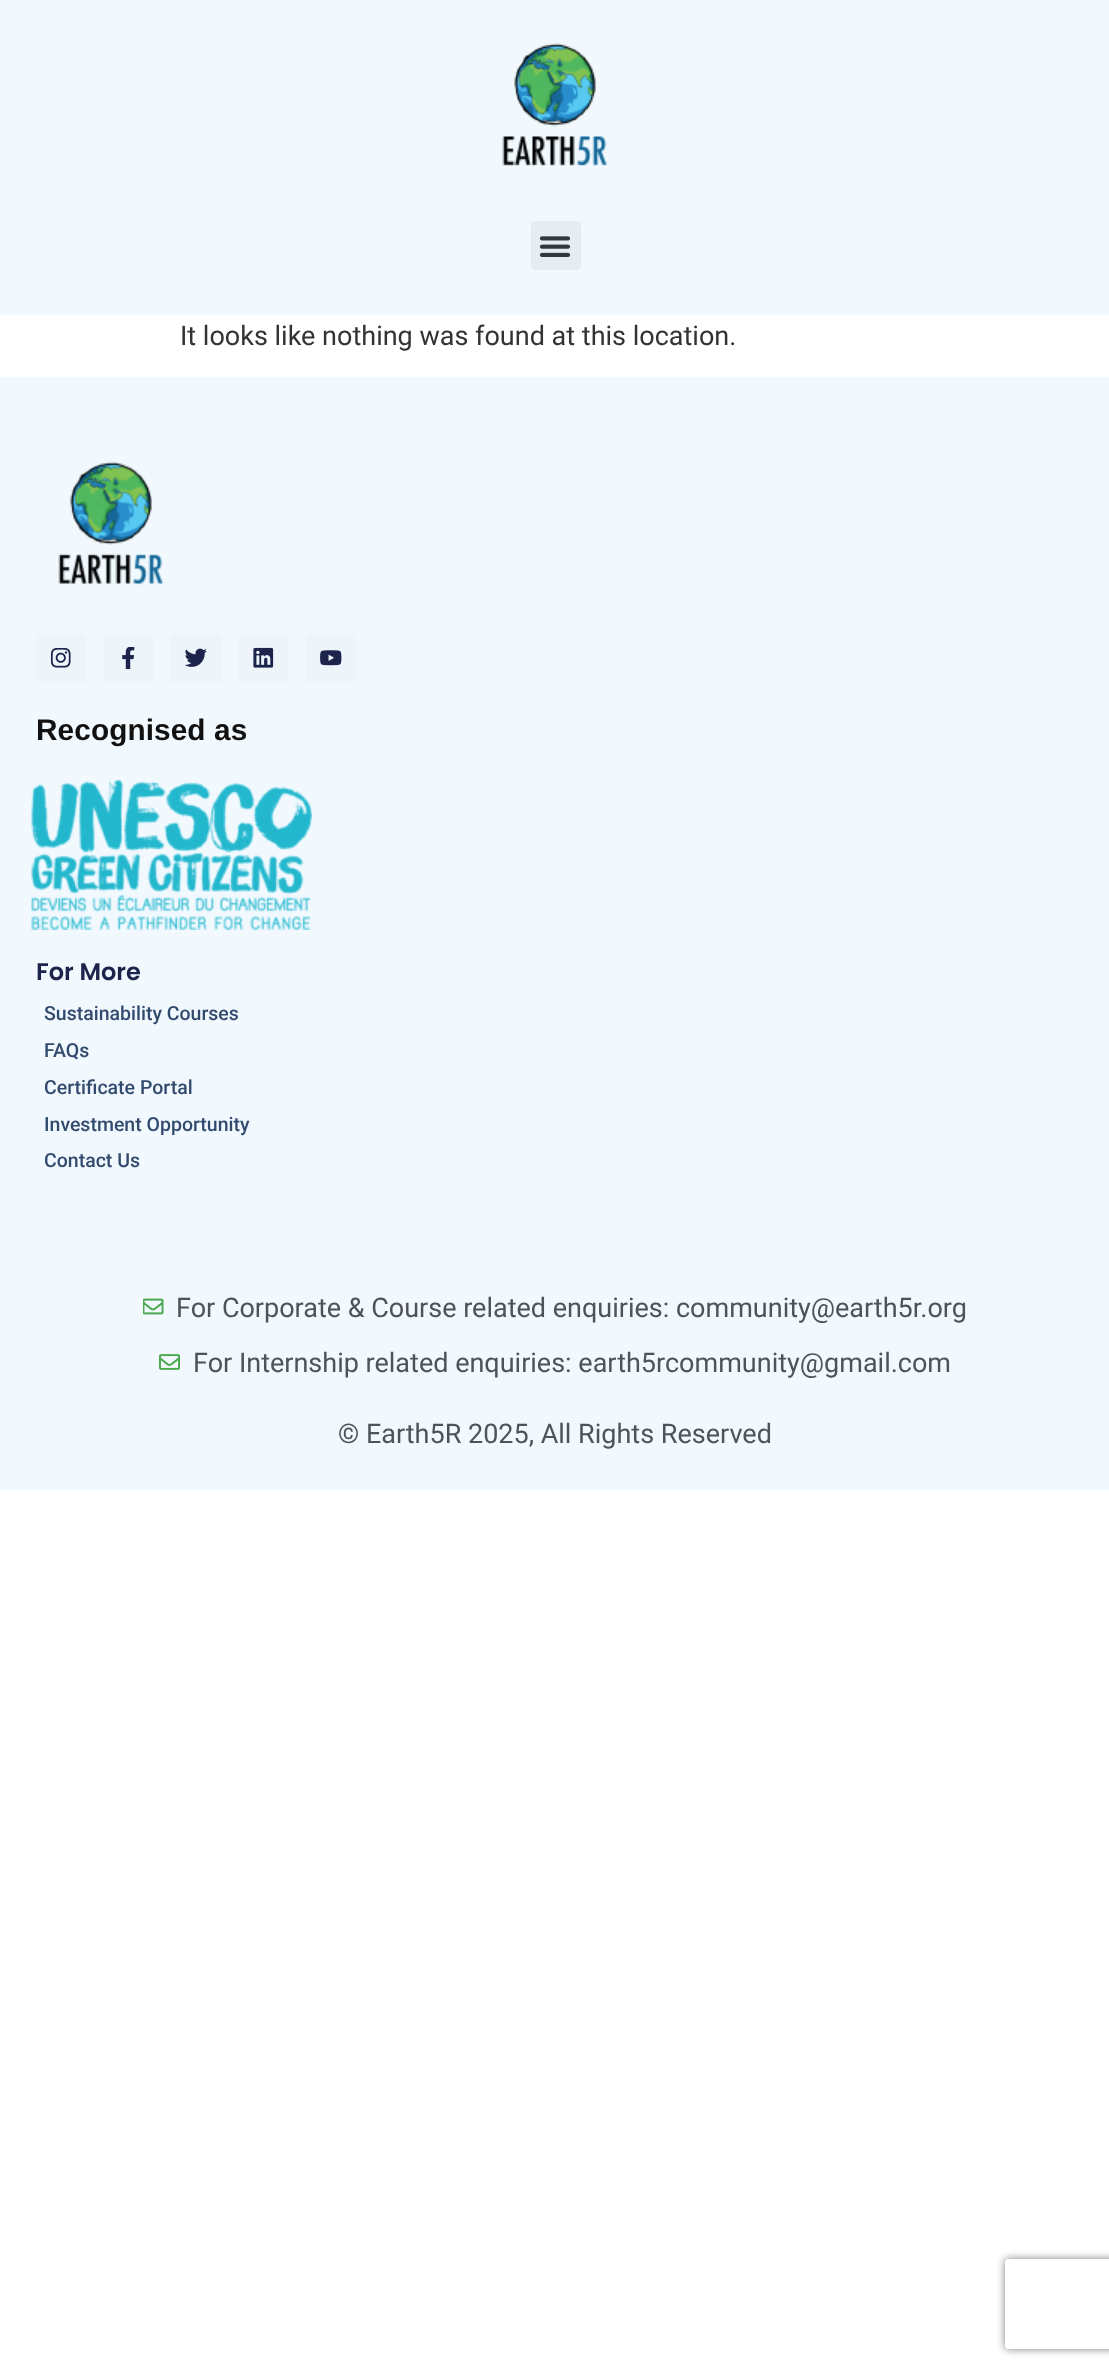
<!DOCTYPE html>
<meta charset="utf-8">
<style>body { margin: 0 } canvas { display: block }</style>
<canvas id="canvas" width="1109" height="2370"></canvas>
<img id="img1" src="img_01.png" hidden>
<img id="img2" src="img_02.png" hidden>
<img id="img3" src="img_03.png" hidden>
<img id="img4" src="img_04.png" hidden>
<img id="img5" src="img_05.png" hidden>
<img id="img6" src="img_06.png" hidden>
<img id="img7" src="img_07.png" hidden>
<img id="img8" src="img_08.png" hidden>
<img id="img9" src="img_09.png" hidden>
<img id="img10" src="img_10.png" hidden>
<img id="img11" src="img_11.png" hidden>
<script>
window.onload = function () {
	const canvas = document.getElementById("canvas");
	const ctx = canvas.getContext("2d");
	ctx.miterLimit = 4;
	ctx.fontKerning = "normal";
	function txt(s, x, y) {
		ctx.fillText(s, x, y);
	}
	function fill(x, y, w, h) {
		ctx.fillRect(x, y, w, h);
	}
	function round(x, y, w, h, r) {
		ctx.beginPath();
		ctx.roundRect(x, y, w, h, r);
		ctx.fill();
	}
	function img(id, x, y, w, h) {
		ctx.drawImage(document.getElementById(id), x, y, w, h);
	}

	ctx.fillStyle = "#FFFFFF";
	fill(0, 0, 1109, 2370);
	ctx.fillStyle = "#F1F9FF";
	fill(0, 0, 1109, 315);
	img("img1", 502, 43, 106, 124);
	ctx.fillStyle = "#E5EDF2";
	round(531, 221, 50, 49, 5);
	img("img2", 539, 236, 32, 21);
	ctx.fillStyle = "#F1F9FF";
	fill(0, 377, 1109, 1113);
	img("img3", 58, 461, 106, 124);
	ctx.fillStyle = "#EDF5FB";
	round(36, 633, 50, 50, 5);
	img("img4", 50, 648, 21, 20);
	round(104, 633, 49, 50, 5);
	img("img5", 122, 647, 13, 22);
	round(171, 633, 50, 50, 5);
	img("img6", 185, 648, 22, 19);
	round(239, 633, 49, 50, 5);
	img("img7", 253, 647, 21, 21);
	round(306, 633, 50, 50, 5);
	img("img8", 320, 650, 22, 16);
	img("img9", 31, 780, 281, 150);
	img("img10", 143, 1298, 21, 17);
	img("img11", 159, 1354, 21, 16);
	ctx.save();
	ctx.beginPath();
	ctx.moveTo(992, 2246);
	ctx.lineTo(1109, 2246);
	ctx.lineTo(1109, 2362);
	ctx.lineTo(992, 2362);
	ctx.closePath();
	ctx.moveTo(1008, 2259);
	ctx.lineTo(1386, 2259);
	ctx.bezierCurveTo(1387.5, 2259, 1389, 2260.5, 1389, 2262);
	ctx.lineTo(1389, 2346);
	ctx.bezierCurveTo(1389, 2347.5, 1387.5, 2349, 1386, 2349);
	ctx.lineTo(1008, 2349);
	ctx.bezierCurveTo(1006.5, 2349, 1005, 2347.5, 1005, 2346);
	ctx.lineTo(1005, 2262);
	ctx.bezierCurveTo(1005, 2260.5, 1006.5, 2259, 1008, 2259);
	ctx.closePath();
	ctx.clip("evenodd");
	ctx.fillStyle = "#808080";
	ctx.filter = "blur(4px)";
	ctx.beginPath();
	ctx.roundRect(1005, 2259, 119, 90, 3);
	ctx.fill();
	ctx.filter = "none";
	ctx.restore();
	ctx.font = "27px Roboto";
	ctx.fillStyle = "#333333";
	txt("It looks like nothing was found at this location.", 180, 345);
	ctx.letterSpacing = "0.1px";
	ctx.font = "bold 29.75px Liberation Sans";
	ctx.fillStyle = "#111111";
	txt("Recognised as", 36, 740);
	ctx.letterSpacing = "0px";
	ctx.font = "600 24px Poppins";
	ctx.fillStyle = "#1C244B";
	txt("For More", 36, 980);
	ctx.font = "500 19.5px Roboto";
	ctx.fillStyle = "#324A6D";
	txt("Sustainability Courses", 44, 1020);
	txt("FAQs", 44, 1057);
	txt("Certificate Portal", 44, 1094);
	txt("Investment Opportunity", 44, 1131);
	txt("Contact Us", 44, 1167);
	ctx.font = "27px Roboto";
	ctx.fillStyle = "#4F5358";
	txt("For Corporate & Course related enquiries: community@earth5r.org", 176, 1317);
	txt("For Internship related enquiries: earth5rcommunity@gmail.com", 193, 1372);
	txt("© Earth5R 2025, All Rights Reserved", 338, 1443);
};
</script>
